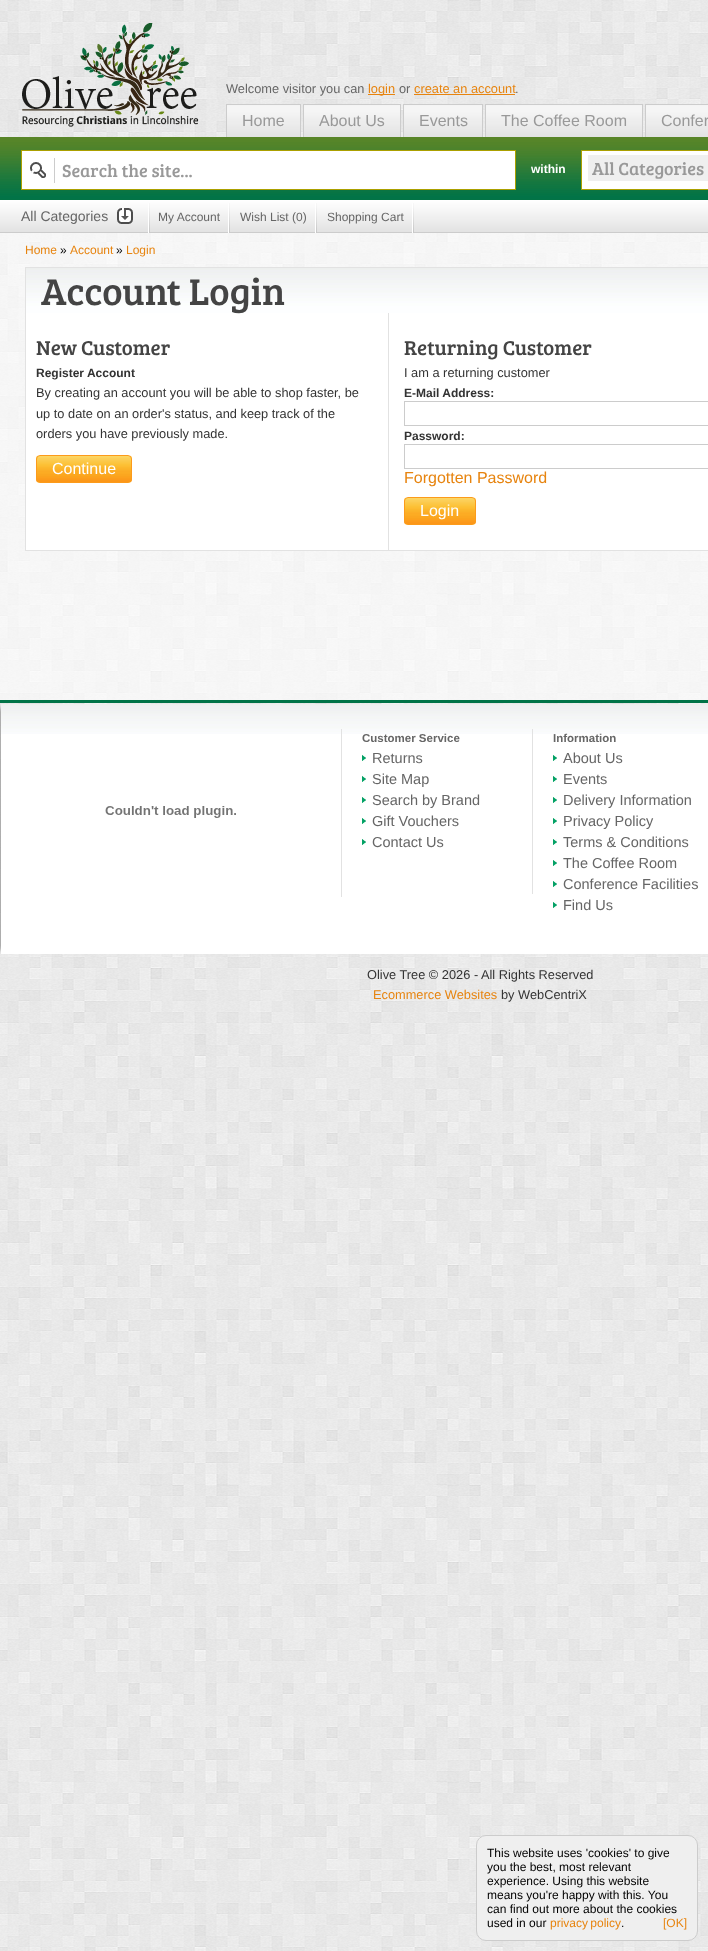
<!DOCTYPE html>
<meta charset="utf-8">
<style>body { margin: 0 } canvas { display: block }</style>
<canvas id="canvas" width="708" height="1951"></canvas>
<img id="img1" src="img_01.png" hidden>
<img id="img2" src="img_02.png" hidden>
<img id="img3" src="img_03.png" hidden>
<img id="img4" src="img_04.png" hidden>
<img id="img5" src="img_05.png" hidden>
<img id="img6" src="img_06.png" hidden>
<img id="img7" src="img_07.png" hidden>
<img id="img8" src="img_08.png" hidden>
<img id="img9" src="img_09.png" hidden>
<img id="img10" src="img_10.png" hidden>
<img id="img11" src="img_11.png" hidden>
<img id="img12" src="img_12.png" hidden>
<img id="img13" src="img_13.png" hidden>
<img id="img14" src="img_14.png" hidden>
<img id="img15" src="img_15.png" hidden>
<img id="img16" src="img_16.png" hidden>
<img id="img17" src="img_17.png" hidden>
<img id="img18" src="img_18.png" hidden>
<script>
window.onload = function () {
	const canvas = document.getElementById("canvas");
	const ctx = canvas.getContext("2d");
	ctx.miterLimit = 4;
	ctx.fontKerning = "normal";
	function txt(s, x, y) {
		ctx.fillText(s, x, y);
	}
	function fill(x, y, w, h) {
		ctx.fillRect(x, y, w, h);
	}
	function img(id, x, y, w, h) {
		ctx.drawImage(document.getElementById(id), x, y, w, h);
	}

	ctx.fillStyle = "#FFFFFF";
	fill(0, 0, 708, 1951);
	img("img1", 0, 0, 708, 1951);
	img("img2", 22, 23, 177, 104);
	ctx.fillStyle = "#E7840F";
	fill(368, 94, 27, 1);
	fill(414, 94, 101, 1);
	img("img3", 227, 105, 73, 32);
	ctx.fillStyle = "#CCCCCC";
	fill(226, 104, 75, 1);
	fill(300, 104, 1, 33);
	fill(226, 104, 1, 33);
	img("img4", 304, 105, 96, 32);
	fill(303, 104, 98, 1);
	fill(400, 104, 1, 33);
	fill(303, 104, 1, 33);
	img("img5", 404, 105, 78, 32);
	fill(403, 104, 80, 1);
	fill(482, 104, 1, 33);
	fill(403, 104, 1, 33);
	img("img6", 486, 105, 156, 32);
	fill(485, 104, 158, 1);
	fill(642, 104, 1, 33);
	fill(485, 104, 1, 33);
	img("img7", 646, 105, 62, 32);
	fill(645, 104, 63, 1);
	fill(645, 104, 1, 33);
	img("img8", 0, 137, 708, 63);
	ctx.fillStyle = "#FFFFFF";
	fill(22, 151, 493, 38);
	img("img9", 30, 158, 25, 25);
	ctx.strokeStyle = "#ABA000";
	ctx.strokeRect(21.5, 150.5, 494, 39);
	ctx.beginPath();
	ctx.rect(581.5, 150.5, 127, 39);
	ctx.fill();
	ctx.stroke();
	ctx.fillStyle = "#EFEFEF";
	fill(588, 155, 120, 26);
	img("img10", 0, 200, 708, 32);
	ctx.fillStyle = "#CCCCCC";
	fill(0, 232, 708, 1);
	img("img11", 117, 208, 16, 16);
	img("img12", 148, 203, 2, 30);
	img("img12", 228, 203, 2, 30);
	img("img12", 315, 203, 2, 30);
	img("img12", 412, 203, 2, 30);
	ctx.fillStyle = "rgba(255, 255, 255, 0.6)";
	fill(0, 233, 708, 467);
	img("img13", 26, 268, 682, 45);
	ctx.fillStyle = "#E2E2E2";
	fill(25, 267, 683, 1);
	fill(25, 267, 1, 46);
	ctx.fillStyle = "#FFFFFF";
	fill(26, 313, 682, 237);
	ctx.fillStyle = "#E2E2E2";
	fill(25, 550, 683, 1);
	fill(25, 313, 1, 238);
	img("img14", 36, 456, 96, 27);
	ctx.beginPath();
	ctx.roundRect(36.5, 455.5, 95, 27, 3.5);
	ctx.strokeStyle = "#FC9B1B";
	ctx.stroke();
	fill(388, 313, 1, 237);
	ctx.strokeStyle = "#CCCCCC";
	ctx.strokeRect(404.5, 401.5, 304, 24);
	ctx.strokeRect(404.5, 444.5, 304, 24);
	img("img15", 404, 498, 72, 27);
	ctx.beginPath();
	ctx.roundRect(404.5, 497.5, 71, 27, 3.5);
	ctx.strokeStyle = "#FC9B1B";
	ctx.stroke();
	ctx.fillStyle = "#007347";
	fill(0, 700, 708, 3);
	ctx.fillStyle = "#999999";
	ctx.filter = "blur(2px)";
	ctx.beginPath();
	ctx.rect(-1, 708, 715, 242);
	ctx.fill();
	ctx.filter = "none";
	ctx.fillStyle = "#FFFFFF";
	fill(1, 734, 707, 220);
	img("img16", 1, 704, 707, 30);
	ctx.fillStyle = "#E2E2E2";
	fill(341, 729, 1, 168);
	img("img17", 105, 806, 131, 12);
	fill(532, 729, 1, 165);
	img("img18", 362, 755, 4, 6);
	img("img18", 362, 776, 4, 6);
	img("img18", 362, 797, 4, 6);
	img("img18", 362, 818, 4, 6);
	img("img18", 362, 839, 4, 6);
	img("img18", 553, 755, 4, 6);
	img("img18", 553, 776, 4, 6);
	img("img18", 553, 797, 4, 6);
	img("img18", 553, 818, 4, 6);
	img("img18", 553, 839, 4, 6);
	img("img18", 553, 860, 4, 6);
	img("img18", 553, 881, 4, 6);
	img("img18", 553, 902, 4, 6);
	ctx.fillStyle = "#EFEFEF";
	ctx.beginPath();
	ctx.roundRect(476.5, 1835.5, 221, 105, 9.5);
	ctx.fill();
	ctx.strokeStyle = "#CCCCCC";
	ctx.stroke();
	ctx.font = "12.8px Liberation Sans";
	ctx.fillStyle = "#666666";
	txt("Welcome visitor you can", 226, 93);
	ctx.fillStyle = "#E7840F";
	txt("login", 368, 93);
	ctx.fillStyle = "#666666";
	txt("or", 399, 93);
	ctx.fillStyle = "#E7840F";
	txt("create an account", 414, 93);
	ctx.fillStyle = "#666666";
	txt(".", 515, 93);
	ctx.font = "16px Liberation Sans";
	ctx.fillStyle = "#999999";
	txt("Home", 242, 126);
	txt("About Us", 319, 126);
	txt("Events", 419, 126);
	txt("The Coffee Room", 501, 126);
	txt("Confer", 661, 126);
	ctx.font = "18px Bree Serif";
	txt("Search the site...", 62, 177);
	ctx.font = "bold 12px Liberation Sans";
	ctx.fillStyle = "#FFFFFF";
	txt("within", 531, 173);
	ctx.font = "18px Bree Serif";
	ctx.fillStyle = "#999999";
	txt("All Categories", 592, 175);
	ctx.font = "14px Liberation Sans";
	ctx.fillStyle = "#666666";
	txt("All Categories", 21, 221);
	ctx.font = "12px Liberation Sans";
	txt("My Account", 158, 221);
	txt("Wish List (0)", 240, 221);
	txt("Shopping Cart", 327, 221);
	ctx.fillStyle = "#E7840F";
	txt("Home", 25, 254);
	ctx.fillStyle = "#000000";
	txt("»", 60, 254);
	ctx.fillStyle = "#E7840F";
	txt("Account", 70, 254);
	ctx.fillStyle = "#000000";
	txt("»", 116, 254);
	ctx.fillStyle = "#E7840F";
	txt("Login", 126, 254);
	ctx.font = "38.5px Bree Serif";
	ctx.fillStyle = "#444444";
	txt("Account Login", 41, 305);
	ctx.font = "20.75px Bree Serif";
	txt("New Customer", 36, 355);
	ctx.font = "bold 12px Liberation Sans";
	ctx.fillStyle = "#333333";
	txt("Register Account", 36, 377);
	ctx.font = "12.8px Liberation Sans";
	txt("By creating an account you will be able to shop faster, be", 36, 397);
	txt("up to date on an order's status, and keep track of the", 36, 418);
	txt("orders you have previously made.", 36, 438);
	ctx.font = "16px Liberation Sans";
	ctx.fillStyle = "#FFFFFF";
	txt("Continue", 52, 474);
	ctx.font = "20.75px Bree Serif";
	ctx.fillStyle = "#444444";
	txt("Returning Customer", 404, 355);
	ctx.font = "12.8px Liberation Sans";
	ctx.fillStyle = "#333333";
	txt("I am a returning customer", 404, 377);
	ctx.font = "bold 12px Liberation Sans";
	txt("E-Mail Address:", 404, 397);
	txt("Password:", 404, 440);
	ctx.font = "16px Liberation Sans";
	ctx.fillStyle = "#E7840F";
	txt("Forgotten Password", 404, 483);
	ctx.fillStyle = "#FFFFFF";
	txt("Login", 420, 516);
	ctx.font = "bold 11.5px Liberation Sans";
	ctx.fillStyle = "#666666";
	txt("Customer Service", 362, 742);
	ctx.font = "14.5px Liberation Sans";
	txt("Returns", 372, 763);
	txt("Site Map", 372, 784);
	txt("Search by Brand", 372, 805);
	txt("Gift Vouchers", 372, 826);
	txt("Contact Us", 372, 847);
	ctx.font = "bold 11.5px Liberation Sans";
	txt("Information", 553, 742);
	ctx.font = "14.5px Liberation Sans";
	txt("About Us", 563, 763);
	txt("Events", 563, 784);
	txt("Delivery Information", 563, 805);
	txt("Privacy Policy", 563, 826);
	txt("Terms & Conditions", 563, 847);
	txt("The Coffee Room", 563, 868);
	txt("Conference Facilities", 563, 889);
	txt("Find Us", 563, 910);
	ctx.font = "12.8px Liberation Sans";
	ctx.fillStyle = "#333333";
	txt("Olive Tree © 2026 - All Rights Reserved", 367, 979);
	ctx.fillStyle = "#E7840F";
	txt("Ecommerce Websites", 373, 999);
	ctx.fillStyle = "#333333";
	txt("by WebCentriX", 501, 999);
	ctx.font = "12px Liberation Sans";
	ctx.fillStyle = "#000000";
	txt("This website uses 'cookies' to give", 487, 1857);
	txt("you the best, most relevant", 487, 1871);
	txt("experience. Using this website", 487, 1885);
	txt("means you're happy with this. You", 487, 1899);
	txt("can find out more about the cookies", 487, 1913);
	txt("used in our", 487, 1927);
	ctx.wordSpacing = "-1px";
	ctx.fillStyle = "#E7840F";
	txt("privacy policy", 550, 1927);
	ctx.wordSpacing = "0px";
	ctx.fillStyle = "#000000";
	txt(".", 621, 1927);
	ctx.fillStyle = "#E7840F";
	txt("[OK]", 663, 1927);
};
</script>
